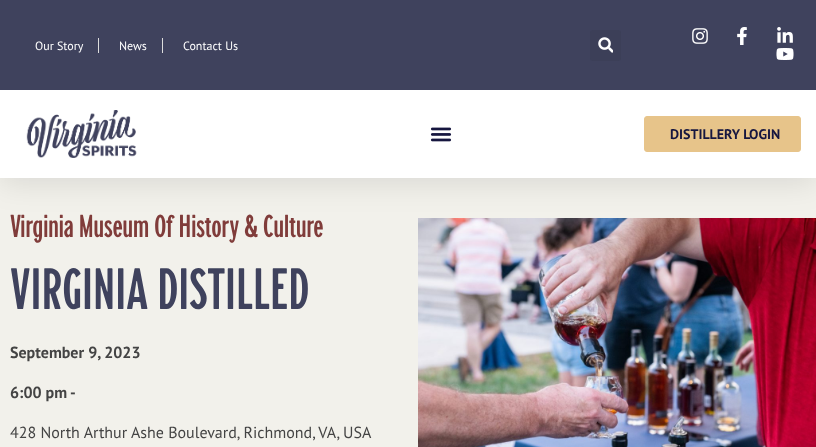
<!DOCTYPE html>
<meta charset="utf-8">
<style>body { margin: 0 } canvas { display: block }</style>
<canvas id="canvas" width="816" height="447"></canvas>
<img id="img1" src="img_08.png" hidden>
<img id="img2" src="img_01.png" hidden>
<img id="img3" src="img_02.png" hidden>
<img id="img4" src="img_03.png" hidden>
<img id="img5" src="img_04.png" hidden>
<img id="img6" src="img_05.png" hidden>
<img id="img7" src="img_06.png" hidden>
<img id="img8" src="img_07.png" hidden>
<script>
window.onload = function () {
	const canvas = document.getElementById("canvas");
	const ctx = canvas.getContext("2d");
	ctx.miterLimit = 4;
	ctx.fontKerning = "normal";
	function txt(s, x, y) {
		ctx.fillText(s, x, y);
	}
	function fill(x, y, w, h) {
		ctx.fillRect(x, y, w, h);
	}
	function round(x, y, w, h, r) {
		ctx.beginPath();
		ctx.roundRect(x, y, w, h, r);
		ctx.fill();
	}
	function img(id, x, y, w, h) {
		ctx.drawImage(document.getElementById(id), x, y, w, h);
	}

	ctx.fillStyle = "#F2F1EB";
	fill(0, 0, 816, 447);
	img("img1", 418, 218, 398, 229);
	ctx.fillStyle = "rgba(0, 0, 0, 0.1)";
	ctx.filter = "blur(15px)";
	ctx.beginPath();
	ctx.rect(0, 5, 816, 178);
	ctx.fill();
	ctx.filter = "none";
	ctx.fillStyle = "#3F425D";
	fill(0, 0, 816, 90);
	ctx.fillStyle = "#DDDDDD";
	fill(98, 38, 1, 15);
	fill(162, 38, 1, 15);
	ctx.fillStyle = "#3C3F58";
	round(590, 30, 31, 31, 3);
	img("img2", 598, 37, 15, 16);
	img("img3", 692, 28, 16, 16);
	img("img4", 737, 27, 10, 18);
	img("img5", 777, 27, 16, 16);
	img("img6", 776, 48, 18, 12);
	ctx.fillStyle = "#FFFFFF";
	fill(0, 90, 816, 88);
	img("img7", 26, 110, 111, 48);
	img("img8", 430, 127, 22, 15);
	ctx.fillStyle = "#E7C48A";
	ctx.beginPath();
	ctx.roundRect(644.5, 116.5, 156, 35, 2.5);
	ctx.fill();
	ctx.strokeStyle = "#E7C48A";
	ctx.stroke();
	ctx.font = "12px PT Sans";
	ctx.fillStyle = "#FFFFFF";
	txt("Our Story", 35, 50);
	txt("News", 119, 50);
	txt("Contact Us", 183, 50);
	ctx.font = "bold 14px PT Sans";
	ctx.fillStyle = "#16163F";
	txt("DISTILLERY LOGIN", 670, 139);
	ctx.font = "28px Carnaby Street";
	ctx.fillStyle = "#803C3A";
	txt("Virginia Museum Of History & Culture", 10, 237);
	ctx.font = "51.25px Carnaby Street";
	ctx.fillStyle = "#3F425D";
	txt("VIRGINIA DISTILLED", 10, 309);
	ctx.font = "bold 16px PT Sans";
	ctx.fillStyle = "#444444";
	txt("September 9, 2023", 10, 358);
	txt("6:00 pm", 10, 398);
	txt("-", 70, 398);
	ctx.font = "16px PT Sans";
	txt("428 North Arthur Ashe Boulevard, Richmond, VA, USA", 10, 438);
};
</script>
